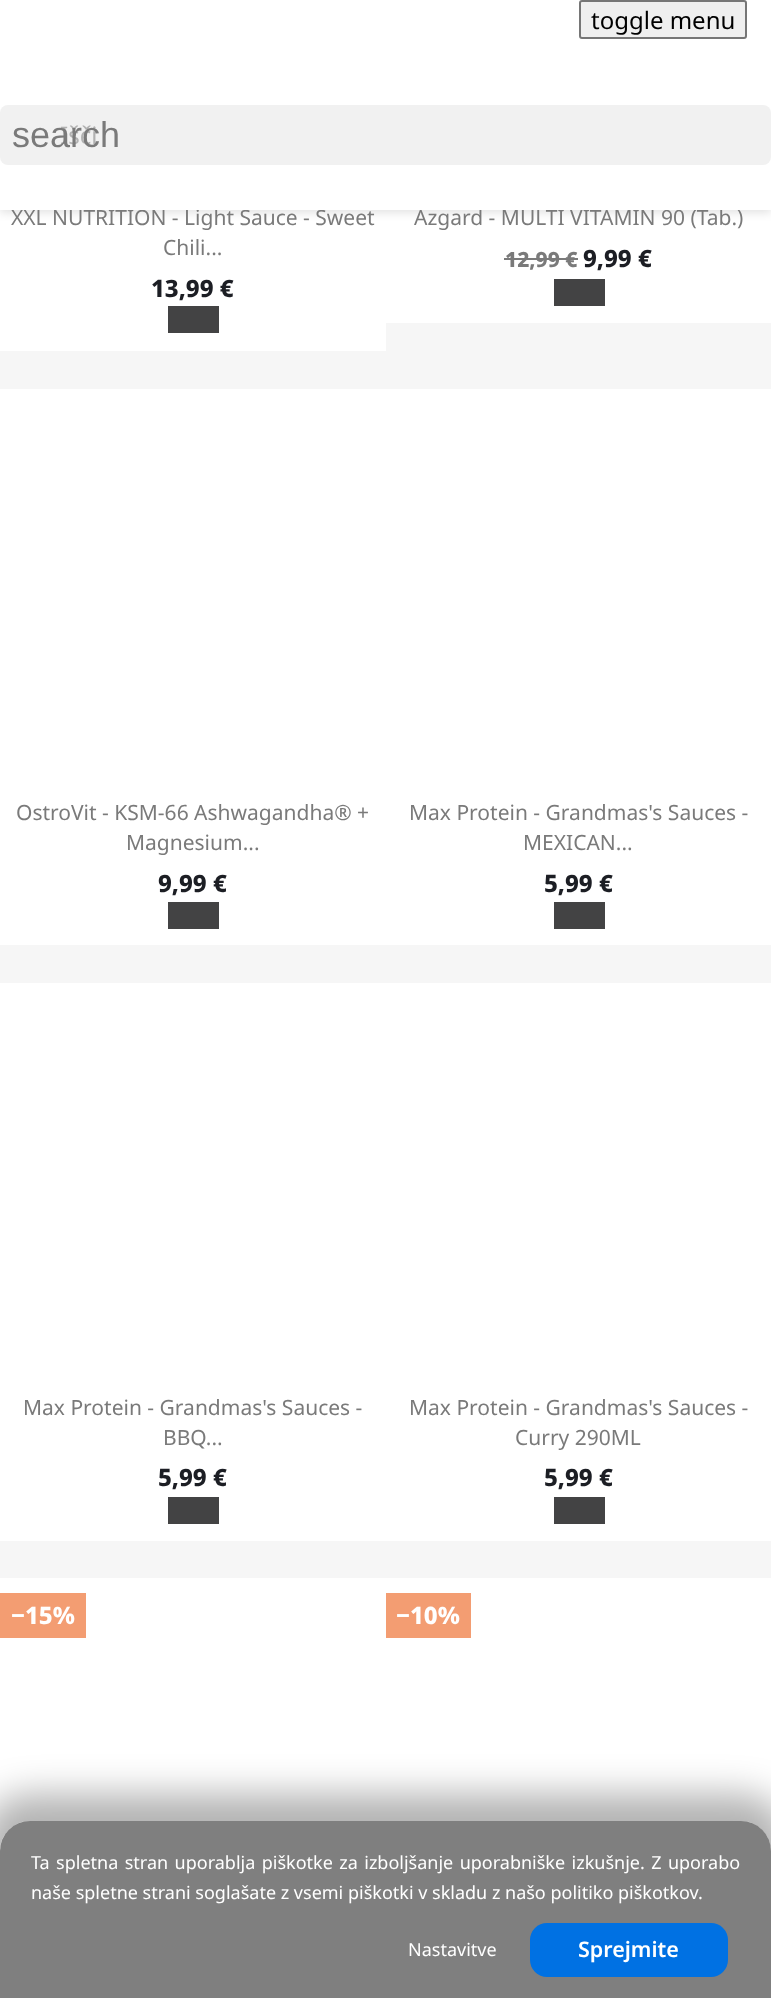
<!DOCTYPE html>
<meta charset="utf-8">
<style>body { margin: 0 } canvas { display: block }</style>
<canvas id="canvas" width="771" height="1998"></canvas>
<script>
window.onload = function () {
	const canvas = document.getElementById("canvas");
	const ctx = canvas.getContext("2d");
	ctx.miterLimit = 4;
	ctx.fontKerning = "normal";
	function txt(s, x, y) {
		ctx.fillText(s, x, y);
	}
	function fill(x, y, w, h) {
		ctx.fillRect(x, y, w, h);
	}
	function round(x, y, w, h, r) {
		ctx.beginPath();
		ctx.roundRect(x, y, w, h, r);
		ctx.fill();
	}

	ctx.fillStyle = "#F6F6F6";
	fill(0, 0, 771, 1998);
	ctx.fillStyle = "#FFFFFF";
	fill(0, 210, 386, 141);
	fill(386, 210, 385, 113);
	ctx.fillStyle = "rgba(0, 0, 0, 0.11)";
	ctx.filter = "blur(4px)";
	ctx.beginPath();
	ctx.rect(0, 3, 771, 210);
	ctx.fill();
	ctx.filter = "none";
	ctx.fillStyle = "#FFFFFF";
	fill(0, 1578, 771, 420);
	ctx.save();
	ctx.beginPath();
	ctx.moveTo(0, 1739);
	ctx.lineTo(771, 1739);
	ctx.lineTo(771, 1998);
	ctx.lineTo(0, 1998);
	ctx.closePath();
	ctx.moveTo(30, 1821);
	ctx.lineTo(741, 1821);
	ctx.bezierCurveTo(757.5, 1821, 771, 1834.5, 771, 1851);
	ctx.lineTo(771, 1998);
	ctx.lineTo(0, 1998);
	ctx.lineTo(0, 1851);
	ctx.bezierCurveTo(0, 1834.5, 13.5, 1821, 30, 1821);
	ctx.closePath();
	ctx.clip("evenodd");
	ctx.fillStyle = "rgba(0, 0, 0, 0.3)";
	ctx.filter = "blur(18px)";
	ctx.beginPath();
	ctx.roundRect(-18, 1794, 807, 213, 48);
	ctx.fill();
	ctx.filter = "none";
	ctx.restore();
	ctx.fillStyle = "rgba(0, 0, 0, 0.5)";
	ctx.beginPath();
	ctx.roundRect(0, 1821, 771, 177, [30, 30, 0, 0]);
	ctx.fill();
	ctx.fillStyle = "#0071E3";
	round(530, 1923, 198, 54, 17);
	ctx.fillStyle = "#434344";
	fill(168, 306, 51, 27);
	ctx.fillStyle = "#7A7A7A";
	fill(504, 258, 74, 2);
	ctx.fillStyle = "#434344";
	fill(554, 279, 51, 27);
	ctx.fillStyle = "#FFFFFF";
	fill(0, 389, 771, 556);
	ctx.fillStyle = "#434344";
	fill(168, 902, 51, 27);
	fill(554, 902, 51, 27);
	ctx.fillStyle = "#FFFFFF";
	fill(0, 983, 771, 558);
	ctx.fillStyle = "#434344";
	fill(168, 1497, 51, 27);
	fill(554, 1497, 51, 27);
	ctx.fillStyle = "#F39D72";
	fill(0, 1593, 86, 45);
	fill(386, 1593, 85, 45);
	ctx.wordSpacing = "1.75px";
	ctx.font = "18px Noto Sans";
	ctx.fillStyle = "#FFFFFF";
	txt("Ta spletna stran uporablja piškotke za izboljšanje uporabniške izkušnje. Z uporabo", 31, 1869);
	ctx.wordSpacing = "0px";
	txt("naše spletne strani soglašate z vsemi piškotki v skladu z našo politiko piškotkov.", 31, 1899);
	txt("Nastavitve", 408, 1956);
	ctx.font = "600 21.5px Noto Sans";
	txt("Sprejmite", 578, 1957);
	ctx.font = "21px Noto Sans";
	ctx.fillStyle = "#7A7A7A";
	txt("XXL NUTRITION - Light Sauce - Sweet", 11, 225);
	txt("Chili...", 163, 255);
	ctx.font = "800 24px Noto Sans";
	ctx.fillStyle = "#1C1E24";
	txt("13,99 €", 151, 297);
	ctx.font = "21px Noto Sans";
	ctx.fillStyle = "#7A7A7A";
	txt("Azgard - MULTI VITAMIN 90 (Tab.)", 414, 225);
	ctx.fillStyle = "#FFFFFF";
	fill(0, 0, 771, 210);
	ctx.fillStyle = "#F1F1F1";
	round(0, 105, 771, 60, 8);
	ctx.font = "24px Noto Sans";
	ctx.fillStyle = "#B1B1B1";
	txt("Išči", 60, 144);
	ctx.font = "36px Liberation Sans";
	ctx.fillStyle = "#7A7A7A";
	txt("search", 12, 147);
	ctx.fillStyle = "#EFEFEF";
	ctx.beginPath();
	ctx.roundRect(580, 1, 166, 37, 2);
	ctx.fill();
	ctx.strokeStyle = "#767676";
	ctx.lineWidth = 2;
	ctx.stroke();
	ctx.font = "24px Noto Sans";
	ctx.fillStyle = "#000000";
	txt("toggle menu", 591, 29);
	ctx.font = "800 21px Noto Sans";
	ctx.fillStyle = "#7A7A7A";
	txt("12,99 €", 505, 267);
	ctx.font = "800 24px Noto Sans";
	ctx.fillStyle = "#1C1E24";
	txt("9,99 €", 583, 267);
	ctx.font = "21px Noto Sans";
	ctx.fillStyle = "#7A7A7A";
	txt("OstroVit - KSM-66 Ashwagandha® +", 16, 820);
	txt("Magnesium...", 126, 850);
	ctx.font = "800 24px Noto Sans";
	ctx.fillStyle = "#1C1E24";
	txt("9,99 €", 158, 892);
	ctx.font = "21px Noto Sans";
	ctx.fillStyle = "#7A7A7A";
	txt("Max Protein - Grandmas's Sauces -", 409, 820);
	txt("MEXICAN...", 523, 850);
	ctx.font = "800 24px Noto Sans";
	ctx.fillStyle = "#1C1E24";
	txt("5,99 €", 544, 892);
	ctx.font = "21px Noto Sans";
	ctx.fillStyle = "#7A7A7A";
	txt("Max Protein - Grandmas's Sauces -", 23, 1415);
	txt("BBQ...", 163, 1445);
	ctx.font = "800 24px Noto Sans";
	ctx.fillStyle = "#1C1E24";
	txt("5,99 €", 158, 1486);
	ctx.font = "21px Noto Sans";
	ctx.fillStyle = "#7A7A7A";
	txt("Max Protein - Grandmas's Sauces -", 409, 1415);
	txt("Curry 290ML", 515, 1445);
	ctx.font = "800 24px Noto Sans";
	ctx.fillStyle = "#1C1E24";
	txt("5,99 €", 544, 1486);
	ctx.fillStyle = "#FFFFFF";
	txt("−15%", 11, 1624);
	txt("−10%", 396, 1624);
};
</script>
